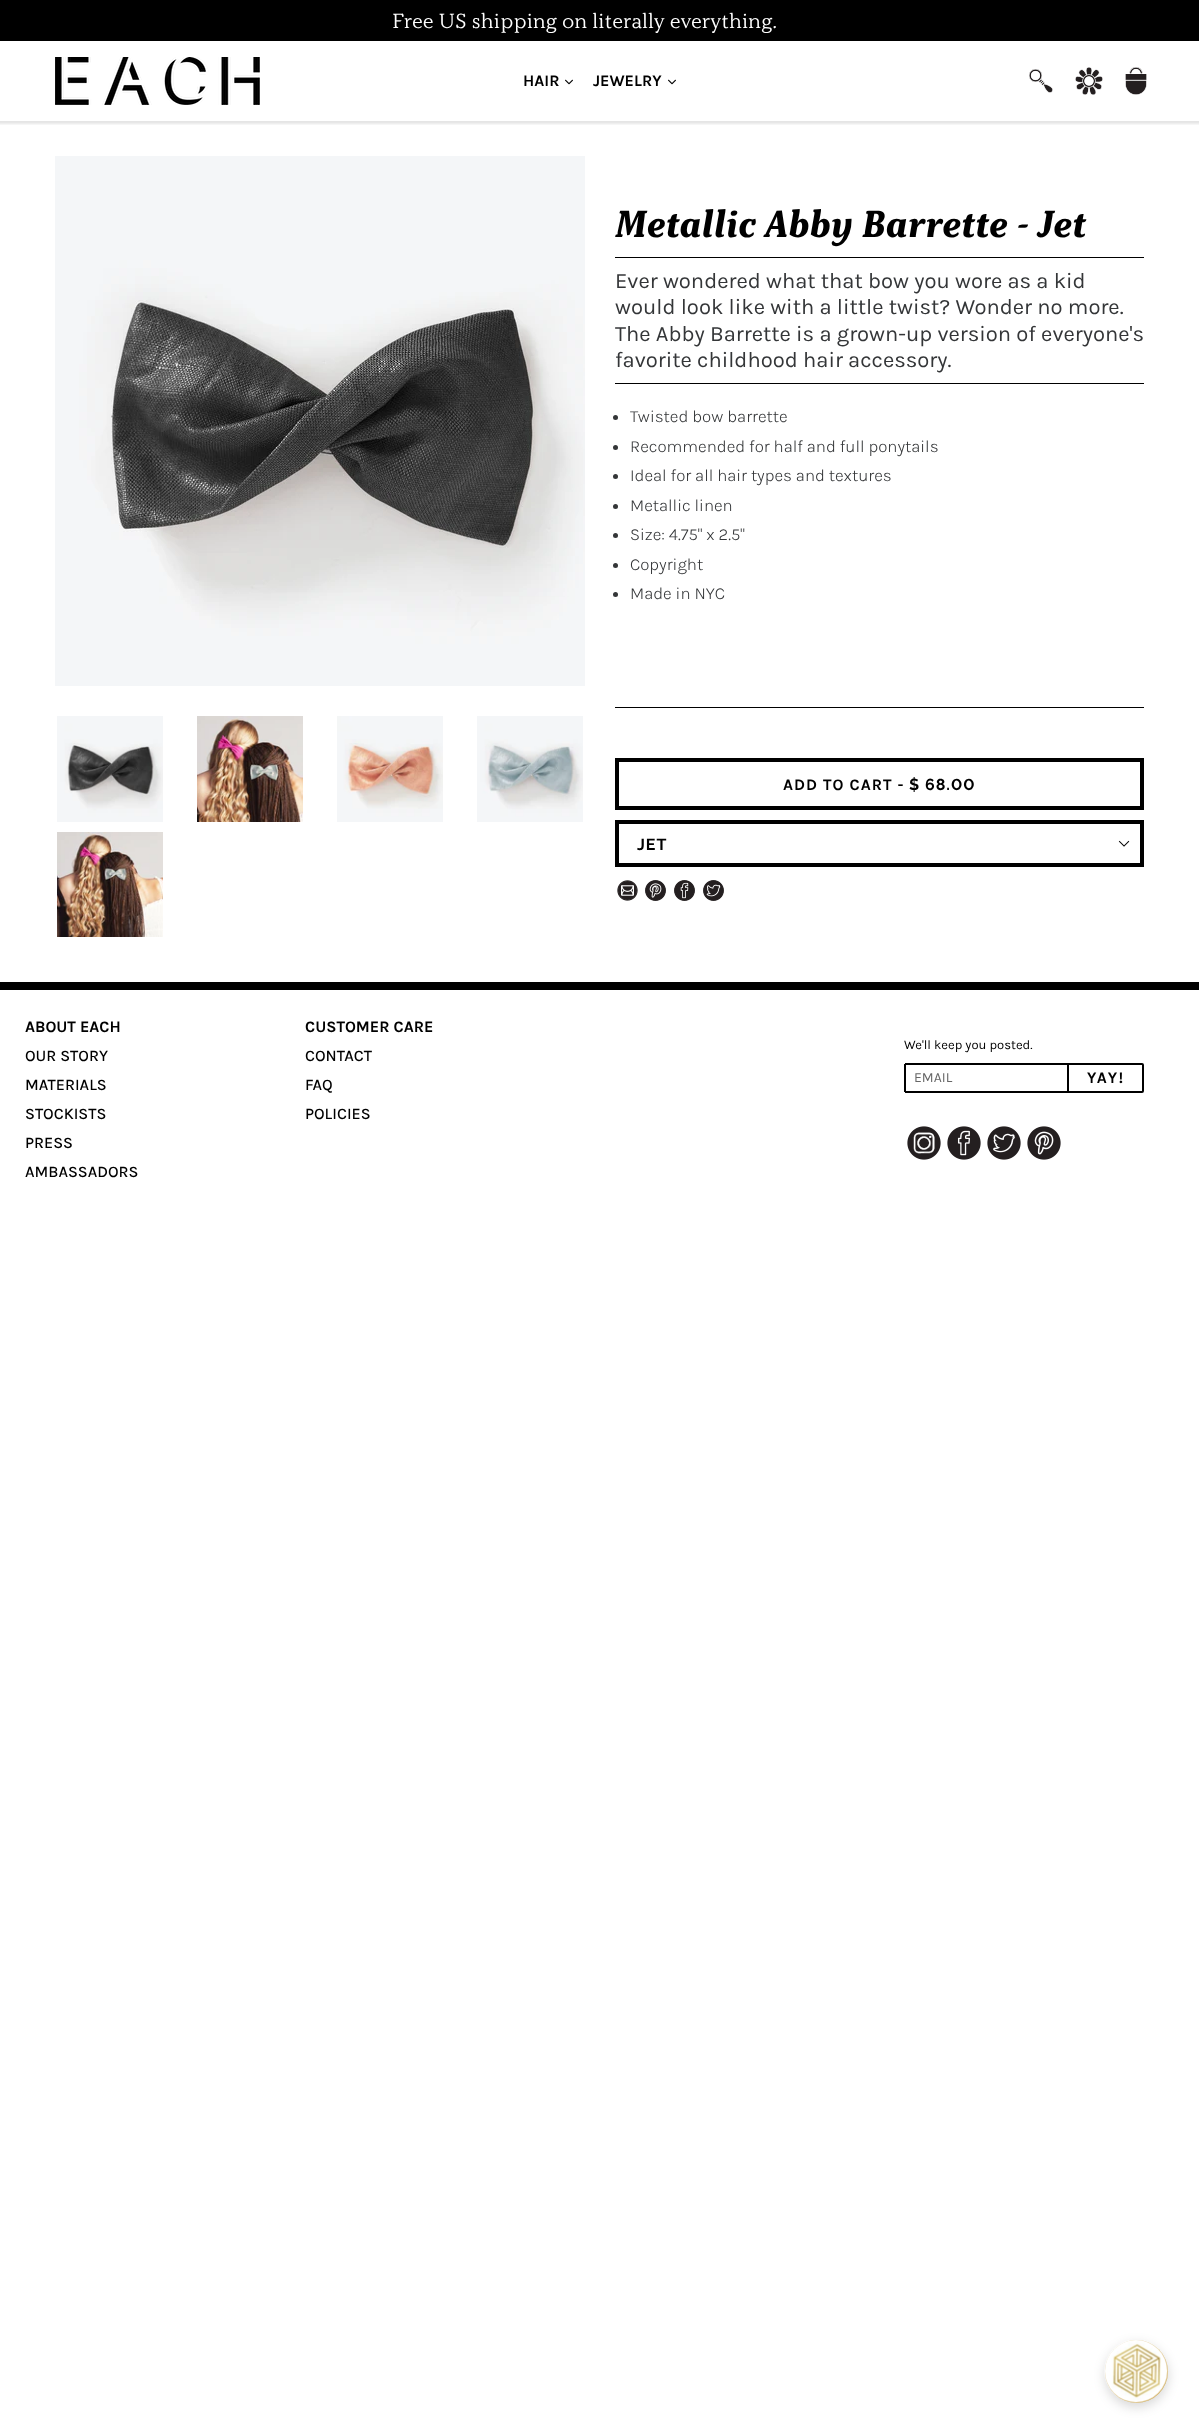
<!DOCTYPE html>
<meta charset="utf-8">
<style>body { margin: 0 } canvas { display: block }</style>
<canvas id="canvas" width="1199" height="2434"></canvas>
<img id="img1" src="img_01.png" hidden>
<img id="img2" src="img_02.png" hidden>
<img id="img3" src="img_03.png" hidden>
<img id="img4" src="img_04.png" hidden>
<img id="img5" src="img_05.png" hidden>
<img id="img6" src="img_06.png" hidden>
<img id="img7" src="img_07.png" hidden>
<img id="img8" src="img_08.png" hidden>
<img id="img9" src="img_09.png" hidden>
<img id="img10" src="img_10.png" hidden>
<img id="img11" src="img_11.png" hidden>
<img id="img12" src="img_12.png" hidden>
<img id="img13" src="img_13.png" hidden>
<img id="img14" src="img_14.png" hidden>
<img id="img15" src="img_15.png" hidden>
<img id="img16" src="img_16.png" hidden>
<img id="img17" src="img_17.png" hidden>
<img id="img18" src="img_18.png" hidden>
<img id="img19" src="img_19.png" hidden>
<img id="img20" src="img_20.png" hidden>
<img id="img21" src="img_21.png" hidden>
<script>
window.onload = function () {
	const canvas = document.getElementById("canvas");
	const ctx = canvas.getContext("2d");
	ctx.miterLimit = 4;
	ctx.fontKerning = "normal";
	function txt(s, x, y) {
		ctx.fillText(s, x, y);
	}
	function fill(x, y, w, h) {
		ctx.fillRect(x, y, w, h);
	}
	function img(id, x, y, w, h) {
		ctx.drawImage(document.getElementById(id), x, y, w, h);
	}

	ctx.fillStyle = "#FFFFFF";
	fill(0, 0, 1199, 2434);
	ctx.save();
	ctx.beginPath();
	ctx.rect(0, 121, 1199, 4);
	ctx.clip();
	ctx.fillStyle = "rgba(0, 0, 0, 0.1)";
	ctx.filter = "blur(1px)";
	ctx.beginPath();
	ctx.rect(-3, -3, 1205, 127);
	ctx.fill();
	ctx.filter = "none";
	ctx.restore();
	ctx.fillStyle = "#000000";
	fill(0, 0, 1199, 41);
	img("img1", 55, 57, 205, 48);
	img("img2", 565, 79, 8, 6);
	img("img2", 668, 79, 8, 6);
	img("img3", 1029, 69, 24, 24);
	img("img4", 1075, 67, 28, 28);
	img("img5", 1125, 67, 22, 28);
	img("img6", 55, 156, 530, 530);
	img("img7", 57, 716, 106, 106);
	img("img8", 197, 716, 106, 106);
	img("img9", 337, 716, 106, 106);
	img("img10", 477, 716, 106, 106);
	img("img11", 57, 832, 106, 105);
	fill(615, 707, 529, 1);
	fill(615, 257, 529, 1);
	fill(615, 383, 529, 1);
	ctx.fillStyle = "#343638";
	ctx.beginPath();
	ctx.arc(615.5, 417.5, 2.5, 0, Math.PI * 2);
	ctx.fill();
	ctx.beginPath();
	ctx.arc(615.5, 447.5, 2.5, 0, Math.PI * 2);
	ctx.fill();
	ctx.beginPath();
	ctx.arc(615.5, 476.5, 2.5, 0, Math.PI * 2);
	ctx.fill();
	ctx.beginPath();
	ctx.arc(615.5, 506.5, 2.5, 0, Math.PI * 2);
	ctx.fill();
	ctx.beginPath();
	ctx.arc(615.5, 535.5, 2.5, 0, Math.PI * 2);
	ctx.fill();
	ctx.beginPath();
	ctx.arc(615.5, 565.5, 2.5, 0, Math.PI * 2);
	ctx.fill();
	ctx.beginPath();
	ctx.arc(615.5, 594.5, 2.5, 0, Math.PI * 2);
	ctx.fill();
	ctx.beginPath();
	ctx.rect(617, 760, 525, 48);
	ctx.strokeStyle = "#000000";
	ctx.lineWidth = 4;
	ctx.stroke();
	img("img12", 1118, 840, 12, 7);
	ctx.beginPath();
	ctx.rect(617, 822, 525, 43);
	ctx.stroke();
	img("img13", 617, 880, 21, 21);
	img("img14", 645, 880, 21, 21);
	img("img15", 674, 880, 21, 21);
	img("img16", 703, 880, 21, 21);
	ctx.fillStyle = "#000000";
	fill(0, 982, 1199, 8);
	fill(905, 1063, 162, 2);
	fill(905, 1091, 162, 2);
	fill(904, 1064, 2, 28);
	ctx.beginPath();
	ctx.roundRect(1068, 1064, 75, 28, [0, 1, 1, 0]);
	ctx.lineWidth = 2;
	ctx.stroke();
	img("img17", 907, 1126, 34, 34);
	img("img18", 947, 1126, 34, 34);
	img("img19", 987, 1126, 34, 34);
	img("img20", 1027, 1126, 34, 34);
	ctx.fillStyle = "rgba(0, 0, 0, 0.16)";
	ctx.filter = "blur(6px)";
	ctx.beginPath();
	ctx.roundRect(1105, 2344, 63, 63, 31.5);
	ctx.fill();
	ctx.filter = "none";
	ctx.fillStyle = "#C79C39";
	ctx.beginPath();
	ctx.arc(1136.5, 2371.5, 31.5, 0, Math.PI * 2);
	ctx.fill();
	img("img21", 1104, 2340, 64, 63);
	ctx.font = "20.75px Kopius";
	ctx.fillStyle = "#FFFFFF";
	txt("Free US shipping on literally everything.", 392, 28);
	ctx.font = "bold 16px Karla";
	ctx.fillStyle = "#000000";
	txt("HAIR", 523, 86);
	txt("JEWELRY", 593, 86);
	ctx.font = "italic bold 38px Kopius";
	txt("Metallic Abby Barrette - Jet", 615, 237);
	ctx.font = "22px Karla";
	ctx.fillStyle = "#343638";
	txt("Ever wondered what that bow you wore as a kid", 615, 288);
	txt("would look like with a little twist? Wonder no more.", 615, 314);
	txt("The Abby Barrette is a grown-up version of everyone's", 615, 341);
	txt("favorite childhood hair accessory.", 615, 367);
	ctx.font = "300 17px Karla";
	txt("Twisted bow barrette", 630, 422);
	txt("Recommended for half and full ponytails", 630, 452);
	txt("Ideal for all hair types and textures", 630, 481);
	txt("Metallic linen", 630, 511);
	txt("Size: 4.75\" x 2.5\"", 630, 540);
	txt("Copyright", 630, 570);
	txt("Made in NYC", 630, 599);
	ctx.letterSpacing = "1px";
	ctx.font = "bold 16px Karla";
	ctx.fillStyle = "#000000";
	txt("ADD TO CART -", 783, 790);
	ctx.font = "bold 16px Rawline";
	txt("$ 68.00", 909, 790);
	txt("JET", 637, 850);
	ctx.letterSpacing = "0px";
	ctx.font = "bold 16px Karla";
	txt("ABOUT EACH", 25, 1032);
	ctx.font = "500 16px Karla";
	txt("OUR STORY", 25, 1061);
	txt("MATERIALS", 25, 1090);
	txt("STOCKISTS", 25, 1119);
	txt("PRESS", 25, 1148);
	txt("AMBASSADORS", 25, 1177);
	ctx.font = "bold 16px Karla";
	txt("CUSTOMER CARE", 305, 1032);
	ctx.font = "500 16px Karla";
	txt("CONTACT", 305, 1061);
	txt("FAQ", 305, 1090);
	txt("POLICIES", 305, 1119);
	ctx.font = "13px Karla";
	txt("We'll keep you posted.", 904, 1049);
	ctx.font = "14px Karla";
	ctx.fillStyle = "#666666";
	txt("EMAIL", 914, 1082);
	ctx.letterSpacing = "1.5px";
	ctx.font = "bold 16px Karla";
	ctx.fillStyle = "#000000";
	txt("YAY!", 1087, 1083);
};
</script>
